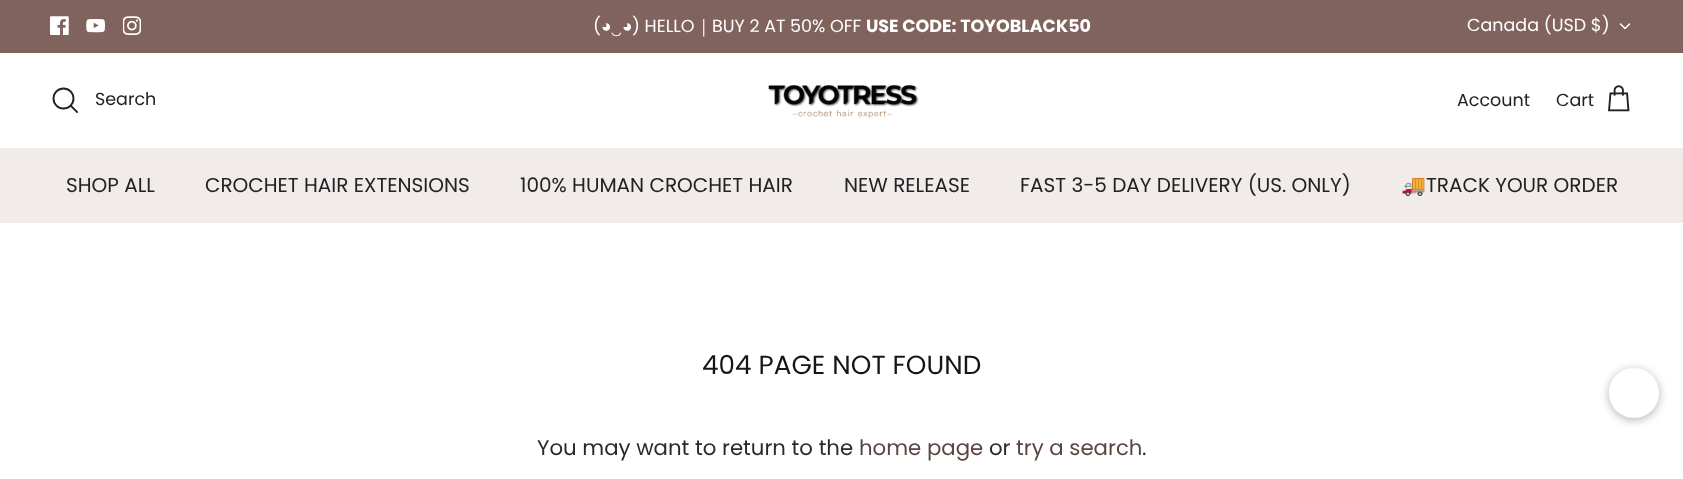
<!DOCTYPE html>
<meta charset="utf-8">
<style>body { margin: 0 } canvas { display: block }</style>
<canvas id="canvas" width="1683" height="479"></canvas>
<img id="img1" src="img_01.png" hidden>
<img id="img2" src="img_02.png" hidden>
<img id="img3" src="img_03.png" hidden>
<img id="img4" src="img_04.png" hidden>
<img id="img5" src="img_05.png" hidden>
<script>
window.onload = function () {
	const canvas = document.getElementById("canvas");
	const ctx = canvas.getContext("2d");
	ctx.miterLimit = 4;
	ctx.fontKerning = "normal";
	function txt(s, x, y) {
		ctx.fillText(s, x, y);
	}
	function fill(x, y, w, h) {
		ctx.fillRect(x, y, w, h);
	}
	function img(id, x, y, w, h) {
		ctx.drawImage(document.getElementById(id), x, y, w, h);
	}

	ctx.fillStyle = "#FFFFFF";
	fill(0, 0, 1683, 479);
	ctx.fillStyle = "#81635D";
	fill(0, 0, 1683, 53);
	img("img1", 50, 16, 19, 19);
	img("img2", 86, 19, 19, 14);
	img("img3", 123, 16, 18, 19);
	ctx.beginPath();
	ctx.moveTo(1620.5, 24);
	ctx.lineTo(1625, 28.5);
	ctx.lineTo(1629.5, 24);
	ctx.strokeStyle = "#FFFFFF";
	ctx.lineWidth = 1.5;
	ctx.lineCap = "round";
	ctx.lineJoin = "round";
	ctx.stroke();
	ctx.beginPath();
	ctx.arc(63.5, 98.5, 10, 0, Math.PI * 2);
	ctx.strokeStyle = "#202223";
	ctx.lineWidth = 1.9;
	ctx.stroke();
	ctx.beginPath();
	ctx.moveTo(71, 106);
	ctx.lineTo(77, 112);
	ctx.lineCap = "square";
	ctx.lineJoin = "miter";
	ctx.stroke();
	img("img4", 768, 85, 151, 33);
	img("img5", 1608, 85, 22, 27);
	ctx.fillStyle = "#F1EBEA";
	fill(0, 148, 1683, 75);
	ctx.save();
	ctx.beginPath();
	ctx.moveTo(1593, 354);
	ctx.lineTo(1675, 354);
	ctx.lineTo(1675, 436);
	ctx.lineTo(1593, 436);
	ctx.closePath();
	ctx.moveTo(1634, 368);
	ctx.bezierCurveTo(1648, 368, 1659, 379, 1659, 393);
	ctx.bezierCurveTo(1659, 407, 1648, 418, 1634, 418);
	ctx.bezierCurveTo(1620, 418, 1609, 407, 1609, 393);
	ctx.bezierCurveTo(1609, 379, 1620, 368, 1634, 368);
	ctx.closePath();
	ctx.clip("evenodd");
	ctx.fillStyle = "rgba(0, 0, 0, 0.3)";
	ctx.filter = "blur(5px)";
	ctx.beginPath();
	ctx.roundRect(1609, 370, 50, 50, 25);
	ctx.fill();
	ctx.filter = "none";
	ctx.restore();
	ctx.font = "17.5px Poppins";
	ctx.fillStyle = "#FFFFFF";
	txt("(", 593, 32);
	ctx.font = "17.5px Liberation Sans";
	txt("◕", 601, 32);
	txt("◕", 622, 32);
	ctx.font = "17.5px Poppins";
	txt(") HELLO", 632, 32);
	ctx.font = "500 17.5px WenQuanYi Zen Hei";
	txt("｜", 695, 32);
	ctx.font = "17.5px Poppins";
	txt("BUY 2 AT 50% OFF", 712, 32);
	ctx.font = "bold 17.5px Poppins";
	txt("USE CODE: TOYOBLACK50", 866, 32);
	ctx.font = "17.5px Noto Sans";
	txt("‿", 611, 32);
	ctx.font = "17.5px Poppins";
	txt("Canada (USD $)", 1467, 31);
	ctx.fillStyle = "#202223";
	txt("Search", 95, 105);
	txt("Account", 1457, 106);
	txt("Cart", 1556, 106);
	ctx.font = "20px Poppins";
	txt("SHOP ALL", 66, 192);
	txt("CROCHET HAIR EXTENSIONS", 205, 192);
	txt("100% HUMAN CROCHET HAIR", 520, 192);
	txt("NEW RELEASE", 844, 192);
	txt("FAST 3-5 DAY DELIVERY (US. ONLY)", 1020, 192);
	ctx.font = "20px Noto Color Emoji";
	txt("🚚", 1401, 192);
	ctx.font = "20px Poppins";
	txt("TRACK YOUR ORDER", 1426, 192);
	ctx.font = "26.25px Poppins";
	ctx.fillStyle = "#1A1413";
	txt("404 PAGE NOT FOUND", 702, 374);
	ctx.font = "21.25px Poppins";
	ctx.fillStyle = "#2A2A2A";
	txt("You may want to return to the", 537, 455);
	ctx.fillStyle = "#5A4541";
	txt("home page", 859, 455);
	ctx.fillStyle = "#2A2A2A";
	txt("or", 989, 455);
	ctx.fillStyle = "#5A4541";
	txt("try a search", 1016, 455);
	ctx.fillStyle = "#2A2A2A";
	txt(".", 1142, 455);
};
</script>
